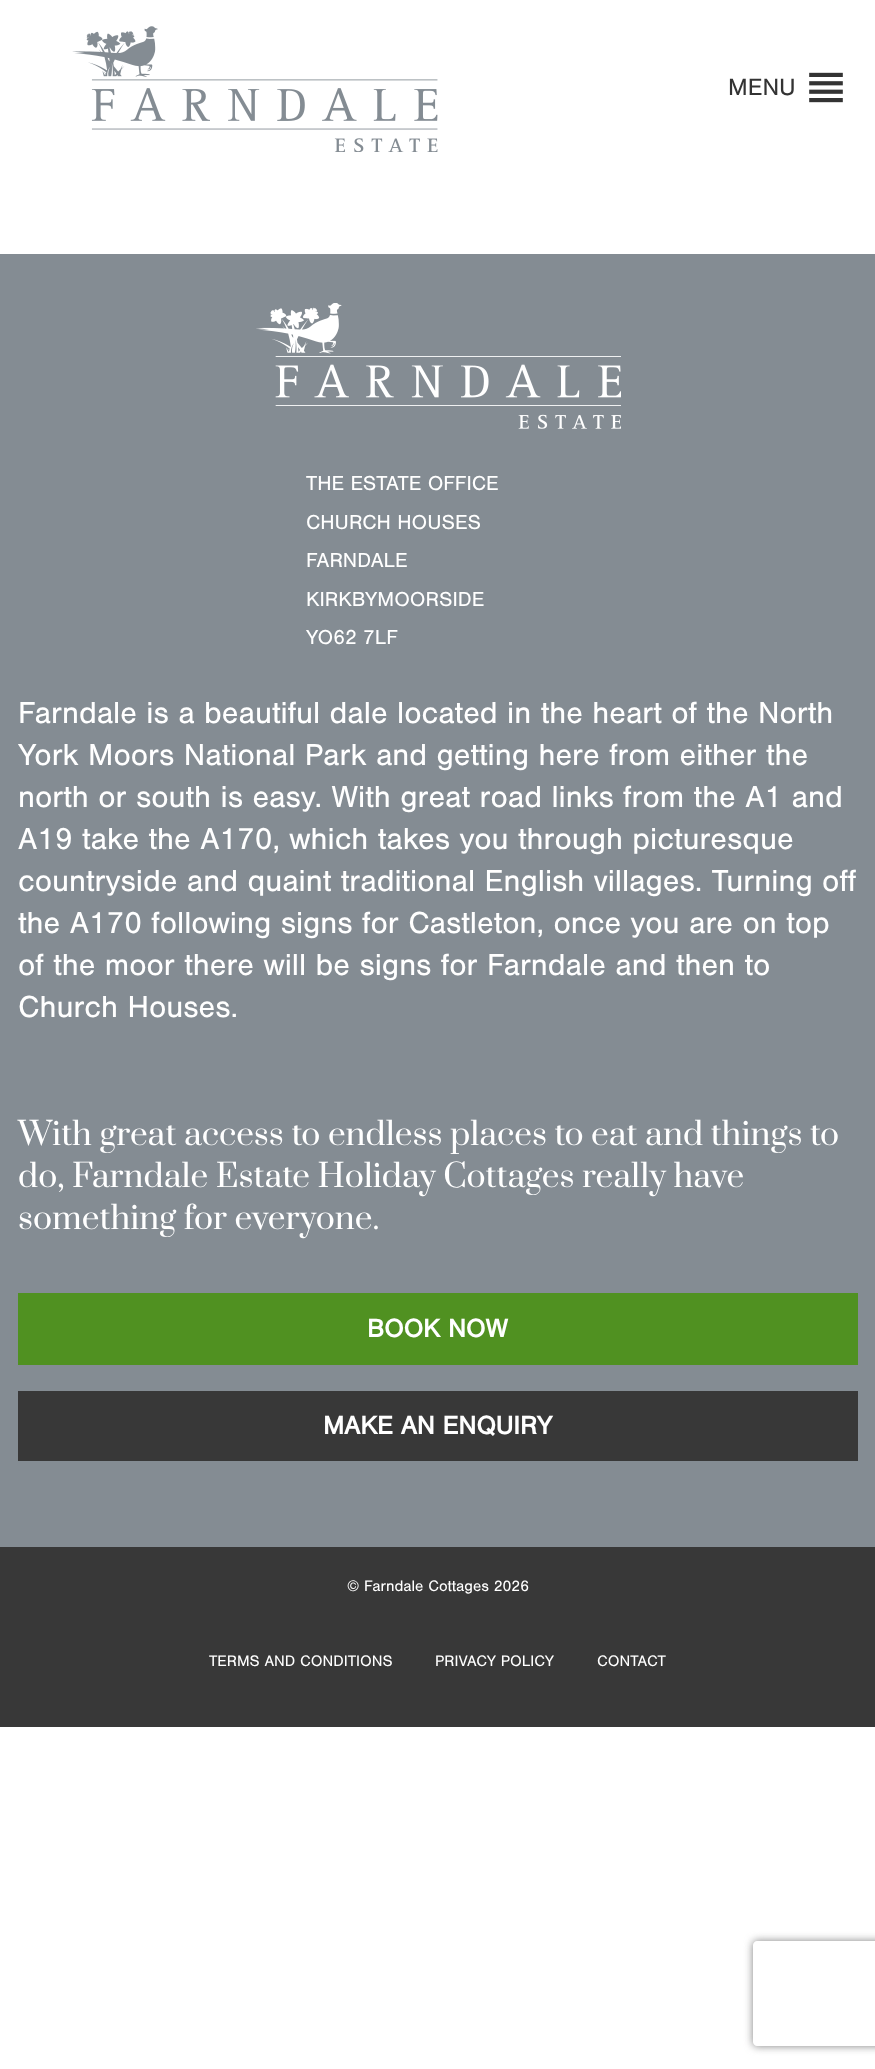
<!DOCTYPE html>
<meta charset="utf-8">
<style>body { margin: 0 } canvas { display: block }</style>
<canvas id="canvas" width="875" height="2069"></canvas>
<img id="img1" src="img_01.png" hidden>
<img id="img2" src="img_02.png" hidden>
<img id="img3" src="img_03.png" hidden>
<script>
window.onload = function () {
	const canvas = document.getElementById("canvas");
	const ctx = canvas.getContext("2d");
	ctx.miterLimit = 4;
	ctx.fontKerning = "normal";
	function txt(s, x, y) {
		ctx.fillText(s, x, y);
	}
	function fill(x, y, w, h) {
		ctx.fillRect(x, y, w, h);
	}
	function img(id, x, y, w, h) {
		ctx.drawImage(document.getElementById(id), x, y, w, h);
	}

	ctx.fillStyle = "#FFFFFF";
	fill(0, 0, 875, 2069);
	img("img1", 72, 26, 366, 126);
	img("img2", 809, 72, 34, 31);
	ctx.fillStyle = "#848C93";
	fill(0, 254, 875, 1293);
	img("img3", 256, 303, 365, 126);
	ctx.fillStyle = "#509121";
	fill(18, 1293, 840, 72);
	ctx.fillStyle = "#383838";
	fill(18, 1391, 840, 70);
	fill(0, 1547, 875, 180);
	ctx.save();
	ctx.beginPath();
	ctx.moveTo(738, 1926);
	ctx.lineTo(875, 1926);
	ctx.lineTo(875, 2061);
	ctx.lineTo(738, 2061);
	ctx.closePath();
	ctx.moveTo(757, 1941);
	ctx.lineTo(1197, 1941);
	ctx.bezierCurveTo(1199, 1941, 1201, 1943, 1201, 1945);
	ctx.lineTo(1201, 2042);
	ctx.bezierCurveTo(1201, 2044, 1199, 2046, 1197, 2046);
	ctx.lineTo(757, 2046);
	ctx.bezierCurveTo(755, 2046, 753, 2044, 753, 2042);
	ctx.lineTo(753, 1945);
	ctx.bezierCurveTo(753, 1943, 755, 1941, 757, 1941);
	ctx.closePath();
	ctx.clip("evenodd");
	ctx.fillStyle = "#808080";
	ctx.filter = "blur(4.5px)";
	ctx.beginPath();
	ctx.roundRect(753, 1941, 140, 105, 4);
	ctx.fill();
	ctx.filter = "none";
	ctx.restore();
	ctx.font = "24.5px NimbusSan";
	ctx.fillStyle = "#333333";
	txt("MENU", 728, 95);
	ctx.font = "21px NimbusSan";
	ctx.fillStyle = "#FFFFFF";
	txt("THE ESTATE OFFICE", 306, 490);
	txt("CHURCH HOUSES", 306, 529);
	txt("FARNDALE", 306, 567);
	txt("KIRKBYMOORSIDE", 306, 606);
	txt("YO62 7LF", 306, 644);
	ctx.font = "31.5px NimbusSan";
	txt("Farndale is a beautiful dale located in the heart of the North", 18, 723);
	txt("York Moors National Park and getting here from either the", 18, 765);
	txt("north or south is easy. With great road links from the A1 and", 18, 807);
	txt("A19 take the A170, which takes you through picturesque", 18, 849);
	txt("countryside and quaint traditional English villages. Turning off", 18, 891);
	txt("the A170 following signs for Castleton, once you are on top", 18, 933);
	txt("of the moor there will be signs for Farndale and then to", 18, 975);
	txt("Church Houses.", 18, 1017);
	ctx.font = "31.5px Prata";
	txt("With great access to endless places to eat and things to", 18, 1145);
	txt("do, Farndale Estate Holiday Cottages really have", 18, 1187);
	txt("something for everyone.", 18, 1229);
	ctx.font = "bold 26.25px NimbusSan";
	txt("BOOK NOW", 367, 1337);
	txt("MAKE AN ENQUIRY", 323, 1434);
	ctx.font = "15.75px NimbusSan";
	txt("© Farndale Cottages 2026", 347, 1591);
	txt("TERMS AND CONDITIONS", 209, 1666);
	txt("PRIVACY POLICY", 435, 1666);
	txt("CONTACT", 597, 1666);
};
</script>
